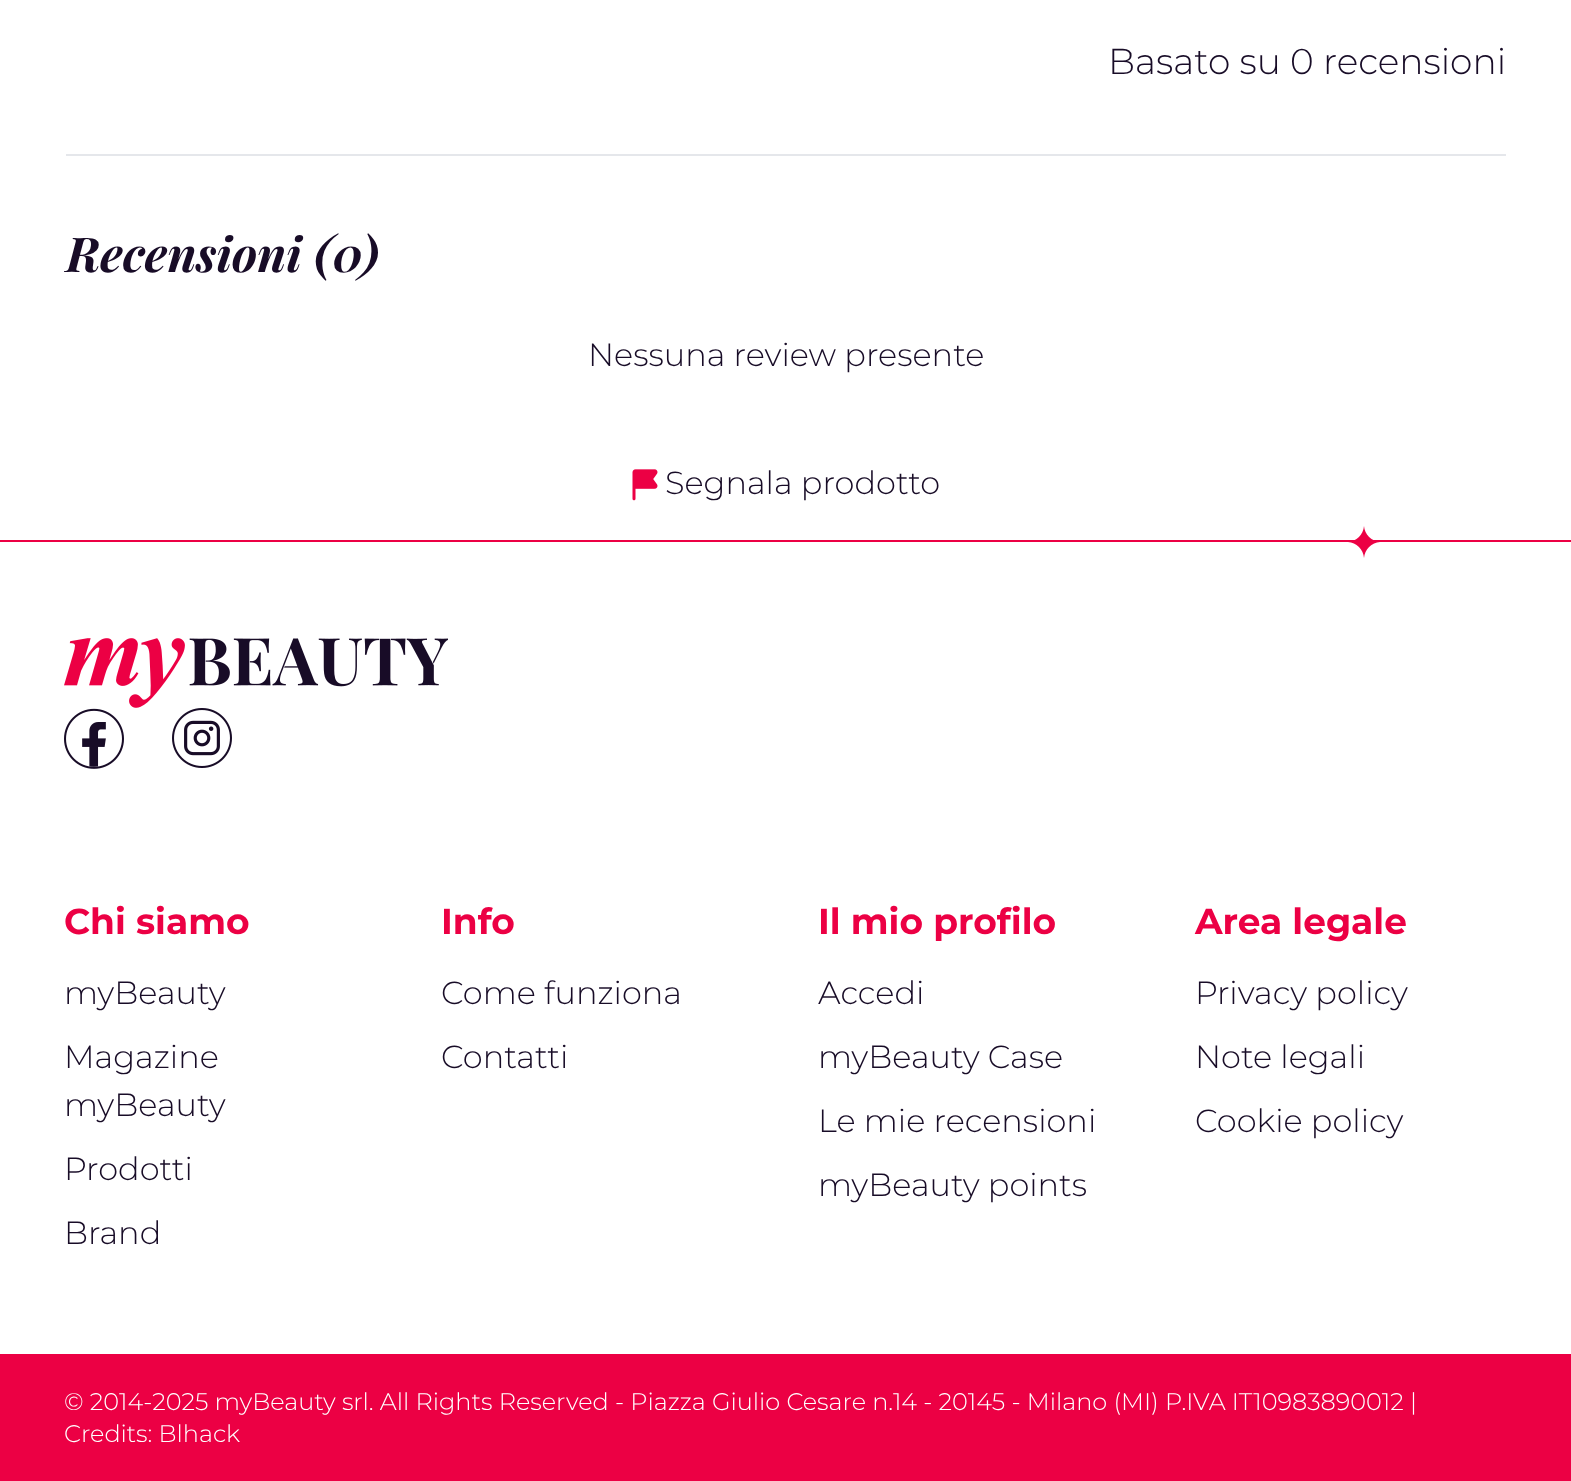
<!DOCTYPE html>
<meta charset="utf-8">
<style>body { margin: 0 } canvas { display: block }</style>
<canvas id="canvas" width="1571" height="1481"></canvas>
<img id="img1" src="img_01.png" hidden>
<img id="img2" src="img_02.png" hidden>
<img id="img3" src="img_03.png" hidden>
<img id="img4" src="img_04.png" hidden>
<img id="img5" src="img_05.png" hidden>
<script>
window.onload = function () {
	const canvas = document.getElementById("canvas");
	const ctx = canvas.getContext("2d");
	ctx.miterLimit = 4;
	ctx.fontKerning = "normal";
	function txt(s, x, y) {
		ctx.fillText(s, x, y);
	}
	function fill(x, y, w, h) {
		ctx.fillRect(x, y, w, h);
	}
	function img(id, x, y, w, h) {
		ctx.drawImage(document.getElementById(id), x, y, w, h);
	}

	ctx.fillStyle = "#FFFFFF";
	fill(0, 0, 1571, 1481);
	ctx.fillStyle = "#E5E7EB";
	fill(66, 154, 1440, 2);
	img("img1", 632, 469, 26, 32);
	ctx.fillStyle = "#EC0044";
	fill(0, 540, 1571, 2);
	img("img2", 1348, 526, 32, 32);
	img("img3", 64, 638, 384, 70);
	img("img4", 64, 708, 60, 61);
	img("img5", 172, 708, 60, 60);
	fill(0, 1354, 1571, 127);
	ctx.font = "300 36px Montserrat";
	ctx.fillStyle = "#180C27";
	txt("Basato su 0 recensioni", 1108, 74);
	ctx.font = "italic bold 48px Playfair Display";
	txt("Recensioni (0)", 66, 272);
	ctx.font = "300 32px Montserrat";
	txt("Nessuna review presente", 588, 366);
	txt("Segnala prodotto", 665, 494);
	ctx.font = "bold 36px Montserrat";
	ctx.fillStyle = "#EC0044";
	txt("Chi siamo", 64, 934);
	ctx.font = "300 32px Montserrat";
	ctx.fillStyle = "#180C27";
	txt("myBeauty", 64, 1004);
	txt("Magazine", 64, 1068);
	txt("myBeauty", 64, 1116);
	txt("Prodotti", 64, 1180);
	txt("Brand", 64, 1244);
	ctx.font = "bold 36px Montserrat";
	ctx.fillStyle = "#EC0044";
	txt("Info", 441, 934);
	ctx.font = "300 32px Montserrat";
	ctx.fillStyle = "#180C27";
	txt("Come funziona", 441, 1004);
	txt("Contatti", 441, 1068);
	ctx.font = "bold 36px Montserrat";
	ctx.fillStyle = "#EC0044";
	txt("Il mio profilo", 818, 934);
	ctx.font = "300 32px Montserrat";
	ctx.fillStyle = "#180C27";
	txt("Accedi", 818, 1004);
	txt("myBeauty Case", 818, 1068);
	txt("Le mie recensioni", 818, 1132);
	txt("myBeauty points", 818, 1196);
	ctx.font = "bold 36px Montserrat";
	ctx.fillStyle = "#EC0044";
	txt("Area legale", 1195, 934);
	ctx.font = "300 32px Montserrat";
	ctx.fillStyle = "#180C27";
	txt("Privacy policy", 1195, 1004);
	txt("Note legali", 1195, 1068);
	txt("Cookie policy", 1195, 1132);
	ctx.font = "300 24px Montserrat";
	ctx.fillStyle = "#FFFFFF";
	txt("© 2014-2025 myBeauty srl. All Rights Reserved - Piazza Giulio Cesare n.14 - 20145 - Milano (MI) P.IVA IT10983890012 |", 64, 1410);
	txt("Credits: Blhack", 64, 1442);
};
</script>
